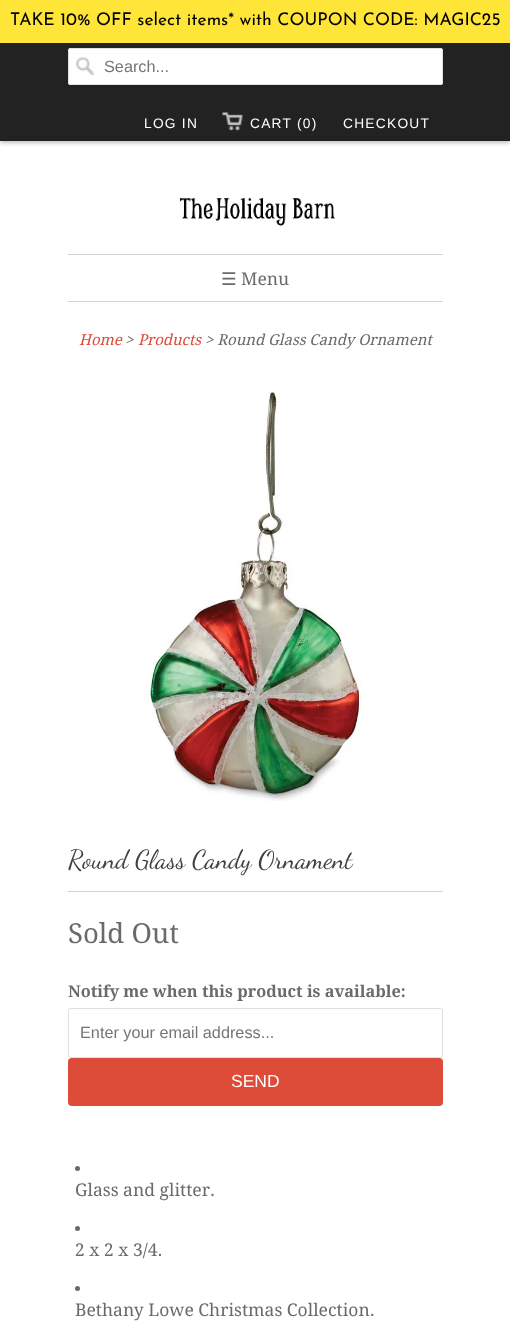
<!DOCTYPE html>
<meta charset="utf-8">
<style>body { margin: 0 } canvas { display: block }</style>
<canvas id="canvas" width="510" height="1337"></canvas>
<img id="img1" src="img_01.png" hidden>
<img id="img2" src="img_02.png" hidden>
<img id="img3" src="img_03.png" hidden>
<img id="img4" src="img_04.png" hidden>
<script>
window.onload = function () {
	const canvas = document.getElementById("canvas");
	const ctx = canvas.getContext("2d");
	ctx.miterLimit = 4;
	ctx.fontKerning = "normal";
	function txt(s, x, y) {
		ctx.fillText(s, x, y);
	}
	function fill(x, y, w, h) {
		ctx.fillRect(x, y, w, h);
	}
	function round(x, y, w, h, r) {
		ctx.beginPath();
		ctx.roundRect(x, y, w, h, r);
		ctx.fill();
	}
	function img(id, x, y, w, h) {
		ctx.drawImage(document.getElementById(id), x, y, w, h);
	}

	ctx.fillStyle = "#FFFFFF";
	fill(0, 0, 510, 1337);
	ctx.fillStyle = "rgba(0, 0, 0, 0.25)";
	ctx.filter = "blur(2px)";
	ctx.beginPath();
	ctx.rect(0, 43, 510, 100);
	ctx.fill();
	ctx.filter = "none";
	ctx.fillStyle = "#FFE538";
	fill(0, 0, 510, 43);
	ctx.fillStyle = "#222222";
	fill(0, 43, 510, 97);
	ctx.fillStyle = "#1F1F1F";
	fill(0, 140, 510, 1);
	ctx.fillStyle = "#FFFFFF";
	round(68, 48, 375, 37, 2.5);
	img("img1", 76, 57, 18, 18);
	ctx.beginPath();
	ctx.roundRect(68.5, 48.5, 374, 36, 2);
	ctx.strokeStyle = "#DFDFDF";
	ctx.stroke();
	img("img2", 222, 112, 21, 19);
	img("img3", 179, 198, 156, 28);
	ctx.fillStyle = "#D3D3D3";
	fill(68, 254, 375, 1);
	fill(68, 301, 375, 1);
	img("img4", 148, 391, 213, 410);
	fill(68, 891, 375, 1);
	ctx.beginPath();
	ctx.roundRect(68.5, 1008.5, 374, 49, 2);
	ctx.stroke();
	ctx.fillStyle = "#DD4B39";
	round(68, 1058, 375, 48, 4);
	ctx.fillStyle = "#6B6969";
	ctx.beginPath();
	ctx.arc(77.5, 1168.5, 2.5, 0, Math.PI * 2);
	ctx.fill();
	ctx.beginPath();
	ctx.arc(77.5, 1228.5, 2.5, 0, Math.PI * 2);
	ctx.fill();
	ctx.beginPath();
	ctx.arc(77.5, 1288.5, 2.5, 0, Math.PI * 2);
	ctx.fill();
	ctx.font = "100 17.5px Josefin Sans";
	ctx.fillStyle = "#000000";
	txt("TAKE 10% OFF select items* with COUPON CODE: MAGIC25", 10, 25);
	ctx.font = "16.25px Liberation Sans";
	ctx.fillStyle = "#757575";
	txt("Search...", 104, 72);
	ctx.letterSpacing = "1.25px";
	ctx.font = "13.75px Liberation Sans";
	ctx.fillStyle = "#FFFFFF";
	txt("LOG IN", 144, 128);
	txt("CART (0)", 250, 128);
	txt("CHECKOUT", 343, 128);
	ctx.letterSpacing = "0px";
	ctx.font = "17.5px DejaVu Sans";
	ctx.fillStyle = "#6B6969";
	txt("☰", 221, 285);
	ctx.font = "17.5px Droid Serif";
	txt("Menu", 241, 285);
	ctx.font = "italic 15px Droid Serif";
	ctx.fillStyle = "#DD4B39";
	txt("Home", 79, 345);
	ctx.fillStyle = "#6B6969";
	txt(">", 125, 345);
	ctx.fillStyle = "#DD4B39";
	txt("Products", 138, 345);
	ctx.fillStyle = "#6B6969";
	txt("> Round Glass Candy Ornament", 205, 345);
	ctx.font = "26.25px Dancing Script";
	ctx.fillStyle = "#404040";
	txt("Round Glass Candy Ornament", 68, 868);
	ctx.font = "27.5px Droid Serif";
	ctx.fillStyle = "#6B6969";
	txt("Sold Out", 68, 943);
	ctx.font = "bold 16.25px Droid Serif";
	txt("Notify me when this product is available:", 68, 997);
	ctx.font = "16.25px Liberation Sans";
	ctx.fillStyle = "#757575";
	txt("Enter your email address...", 80, 1038);
	ctx.font = "17.5px Liberation Sans";
	ctx.fillStyle = "#FFFFFF";
	txt("SEND", 231, 1087);
	ctx.font = "17.5px Droid Serif";
	ctx.fillStyle = "#6B6969";
	txt("Glass and glitter.", 75, 1196);
	txt("2 x 2 x 3/4.", 75, 1256);
	txt("Bethany Lowe Christmas Collection.", 75, 1316);
};
</script>
